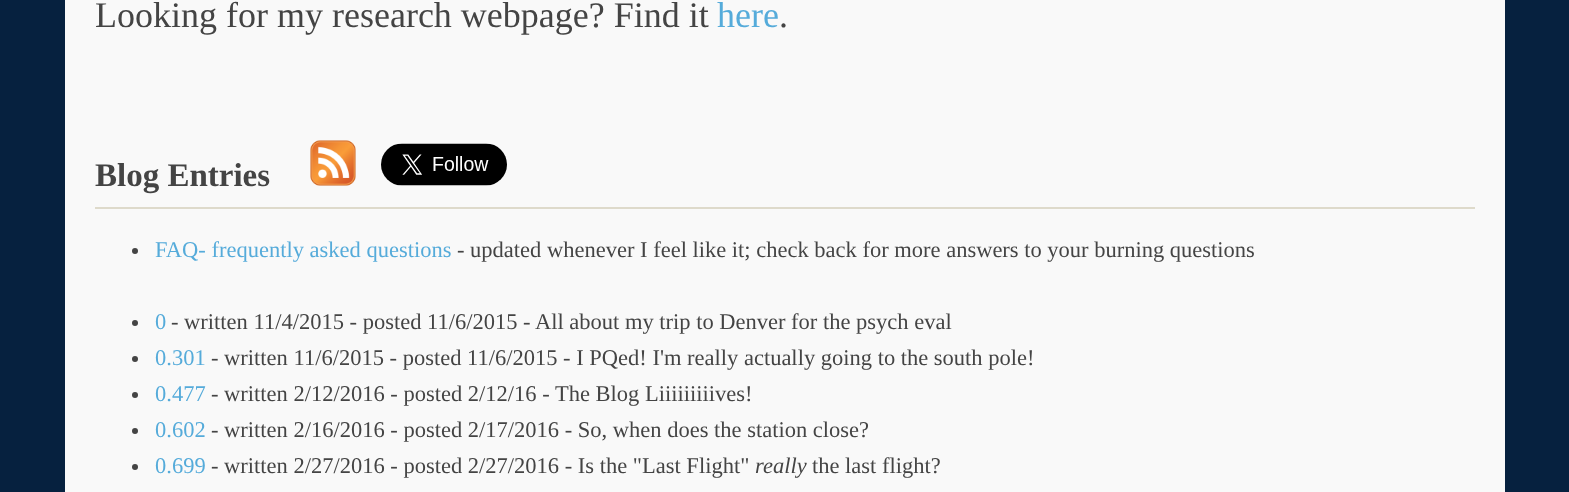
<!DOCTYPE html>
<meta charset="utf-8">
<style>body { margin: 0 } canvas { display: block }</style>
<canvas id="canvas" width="1569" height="492"></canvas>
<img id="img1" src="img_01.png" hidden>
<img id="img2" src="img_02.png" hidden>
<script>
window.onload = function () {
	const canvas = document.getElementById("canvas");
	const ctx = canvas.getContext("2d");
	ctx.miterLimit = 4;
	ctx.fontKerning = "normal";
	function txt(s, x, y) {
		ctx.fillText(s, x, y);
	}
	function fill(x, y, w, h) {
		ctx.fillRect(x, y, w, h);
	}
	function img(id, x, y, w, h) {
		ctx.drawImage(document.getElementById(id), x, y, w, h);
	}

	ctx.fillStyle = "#06213F";
	fill(0, 0, 1569, 492);
	ctx.fillStyle = "#F9F9F9";
	fill(65, 0, 1440, 492);
	ctx.fillStyle = "#DEDACB";
	fill(95, 207, 1380, 2);
	img("img1", 310, 140, 46, 46);
	img("img2", 381, 143, 126, 43);
	ctx.fillStyle = "#444444";
	ctx.beginPath();
	ctx.arc(135, 251, 3, 0, Math.PI * 2);
	ctx.fill();
	ctx.beginPath();
	ctx.arc(135, 323, 3, 0, Math.PI * 2);
	ctx.fill();
	ctx.beginPath();
	ctx.arc(135, 359, 3, 0, Math.PI * 2);
	ctx.fill();
	ctx.beginPath();
	ctx.arc(135, 395, 3, 0, Math.PI * 2);
	ctx.fill();
	ctx.beginPath();
	ctx.arc(135, 431, 3, 0, Math.PI * 2);
	ctx.fill();
	ctx.beginPath();
	ctx.arc(135, 467, 3, 0, Math.PI * 2);
	ctx.fill();
	ctx.font = "36px Liberation Serif";
	txt("Looking for my research webpage? Find it", 95, 27);
	ctx.fillStyle = "#55ABDA";
	txt("here", 717, 27);
	ctx.fillStyle = "#444444";
	txt(".", 779, 27);
	ctx.font = "bold 33px Liberation Serif";
	txt("Blog Entries", 95, 186);
	ctx.font = "22.5px Liberation Serif";
	ctx.fillStyle = "#55ABDA";
	txt("FAQ- frequently asked questions", 155, 257);
	ctx.fillStyle = "#444444";
	txt("- updated whenever I feel like it; check back for more answers to your burning questions", 457, 257);
	ctx.fillStyle = "#55ABDA";
	txt("0", 155, 329);
	ctx.fillStyle = "#444444";
	txt("- written 11/4/2015 - posted 11/6/2015 - All about my trip to Denver for the psych eval", 171, 329);
	ctx.fillStyle = "#55ABDA";
	txt("0.301", 155, 365);
	ctx.fillStyle = "#444444";
	txt("- written 11/6/2015 - posted 11/6/2015 - I PQed! I'm really actually going to the south pole!", 211, 365);
	ctx.fillStyle = "#55ABDA";
	txt("0.477", 155, 401);
	ctx.fillStyle = "#444444";
	txt("- written 2/12/2016 - posted 2/12/16 - The Blog Liiiiiiiiives!", 211, 401);
	ctx.fillStyle = "#55ABDA";
	txt("0.602", 155, 437);
	ctx.fillStyle = "#444444";
	txt("- written 2/16/2016 - posted 2/17/2016 - So, when does the station close?", 211, 437);
	ctx.fillStyle = "#55ABDA";
	txt("0.699", 155, 473);
	ctx.fillStyle = "#444444";
	txt("- written 2/27/2016 - posted 2/27/2016 - Is the \"Last Flight\"", 211, 473);
	ctx.font = "italic 22.5px Liberation Serif";
	txt("really", 755, 473);
	ctx.font = "22.5px Liberation Serif";
	txt("the last flight?", 812, 473);
};
</script>
